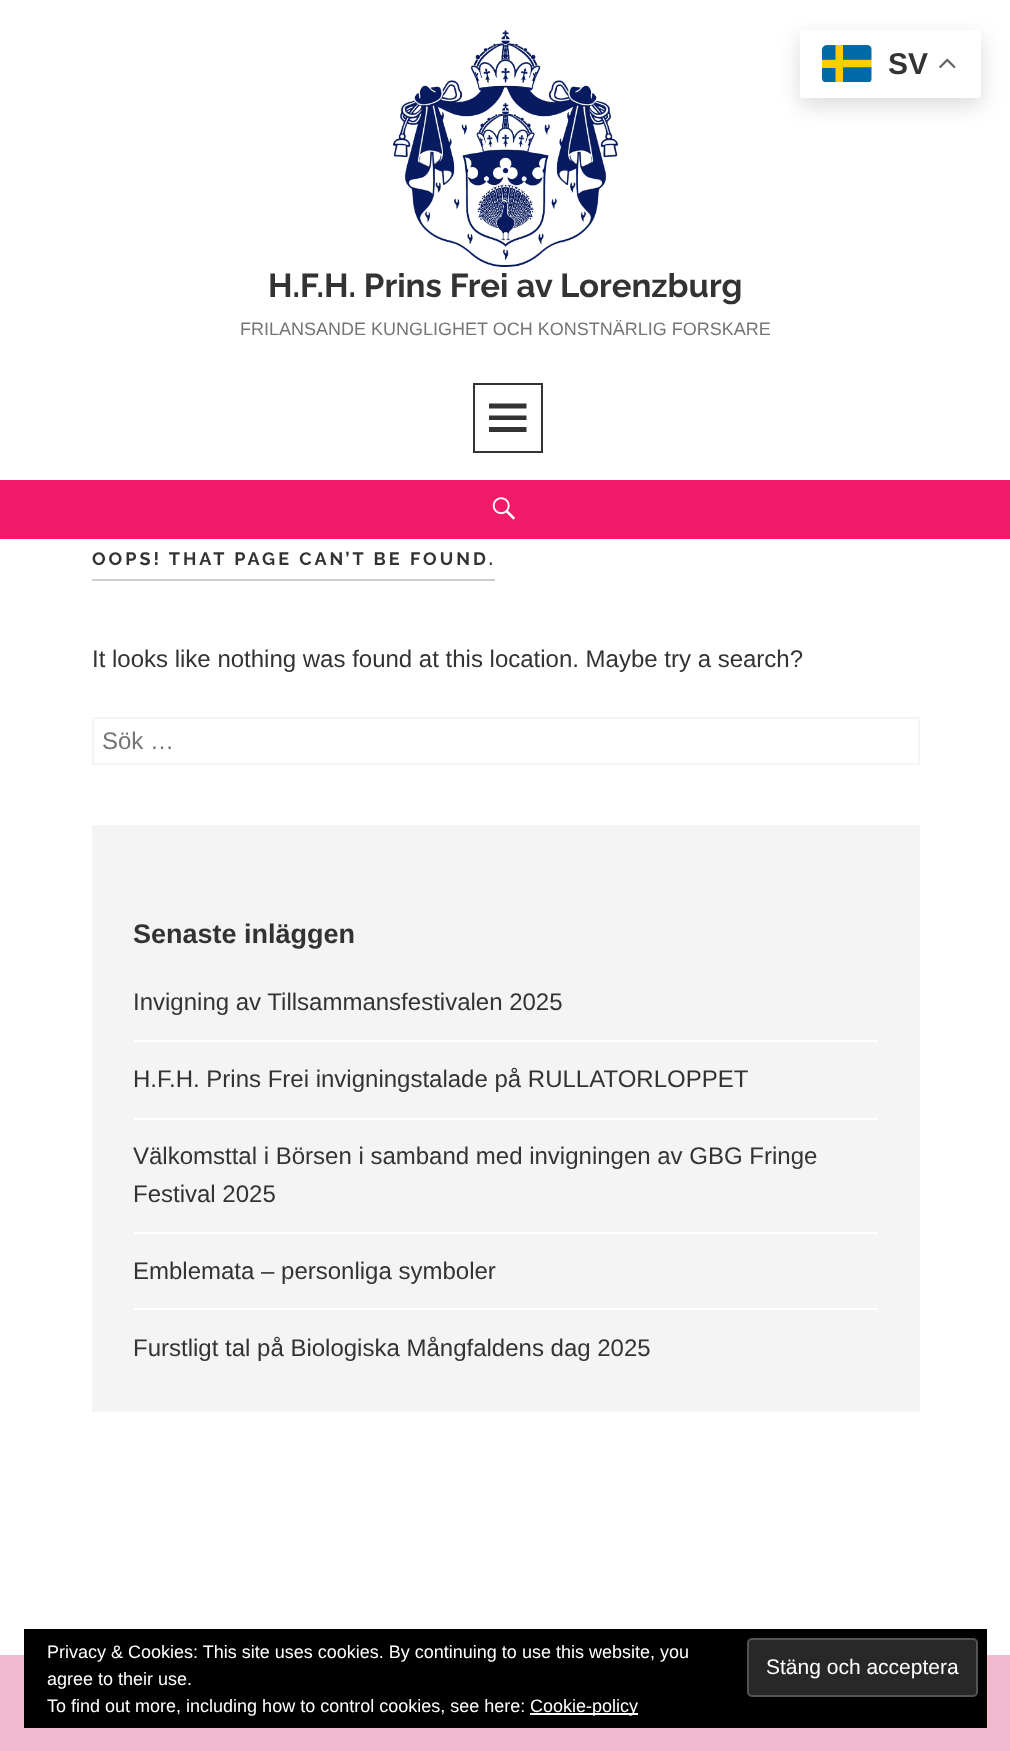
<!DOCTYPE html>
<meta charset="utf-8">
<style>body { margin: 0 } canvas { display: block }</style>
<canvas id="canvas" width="1010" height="1751"></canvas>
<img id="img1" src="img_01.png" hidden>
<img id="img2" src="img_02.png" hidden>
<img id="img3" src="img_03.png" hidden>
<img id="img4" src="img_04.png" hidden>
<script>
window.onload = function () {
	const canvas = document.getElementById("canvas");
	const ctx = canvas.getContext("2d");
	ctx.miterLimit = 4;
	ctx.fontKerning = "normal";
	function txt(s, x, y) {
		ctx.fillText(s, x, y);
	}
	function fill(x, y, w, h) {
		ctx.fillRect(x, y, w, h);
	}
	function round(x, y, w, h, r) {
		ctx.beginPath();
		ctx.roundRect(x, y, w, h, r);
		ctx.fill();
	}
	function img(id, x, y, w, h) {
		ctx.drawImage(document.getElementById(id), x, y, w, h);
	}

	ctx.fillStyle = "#FFFFFF";
	fill(0, 0, 1010, 1751);
	ctx.fillStyle = "rgba(0, 0, 0, 0.15)";
	ctx.filter = "blur(11px)";
	ctx.beginPath();
	ctx.roundRect(800, 38, 181, 67, 3);
	ctx.fill();
	ctx.filter = "none";
	ctx.fillStyle = "#FFFFFF";
	round(800, 30, 181, 68, 3);
	img("img1", 822, 45, 50, 37);
	img("img2", 939, 58, 17, 11);
	img("img3", 393, 30, 225, 237);
	ctx.strokeStyle = "#333333";
	ctx.lineWidth = 2;
	ctx.strokeRect(474, 384, 68, 68);
	ctx.fillStyle = "#333333";
	ctx.beginPath();
	ctx.moveTo(489, 432);
	ctx.lineTo(489, 427);
	ctx.lineTo(526.5, 427);
	ctx.lineTo(526.5, 432);
	ctx.closePath();
	ctx.moveTo(489, 403.5);
	ctx.lineTo(526.5, 403.5);
	ctx.lineTo(526.5, 408.5);
	ctx.lineTo(489, 408.5);
	ctx.closePath();
	ctx.moveTo(489, 420);
	ctx.lineTo(489, 415.5);
	ctx.lineTo(526.5, 415.5);
	ctx.lineTo(526.5, 420);
	ctx.closePath();
	ctx.fill();
	ctx.fillStyle = "#F21A69";
	fill(0, 480, 1010, 59);
	img("img4", 492, 497, 24, 23);
	ctx.fillStyle = "#CDCDCD";
	fill(92, 579, 403, 2);
	ctx.strokeStyle = "#F5F4F4";
	ctx.strokeRect(93, 718, 826, 46);
	ctx.fillStyle = "#F5F4F4";
	fill(92, 825, 828, 587);
	ctx.fillStyle = "#FFFFFF";
	fill(134, 1040, 744, 2);
	fill(134, 1118, 744, 2);
	fill(134, 1232, 744, 2);
	fill(134, 1308, 744, 2);
	ctx.fillStyle = "#F2BACF";
	fill(0, 1655, 1010, 96);
	ctx.fillStyle = "#000000";
	fill(24, 1629, 963, 99);
	ctx.fillStyle = "#282828";
	ctx.beginPath();
	ctx.roundRect(748, 1639, 229, 57, 4);
	ctx.fill();
	ctx.strokeStyle = "#535353";
	ctx.stroke();
	ctx.fillStyle = "#FFFFFF";
	fill(530, 1713, 108, 2);
	ctx.font = "bold 30px Liberation Sans";
	ctx.fillStyle = "#333333";
	txt("SV", 888, 74);
	ctx.font = "bold 33px Raleway";
	txt("H.F.H. Prins Frei av Lorenzburg", 268, 297);
	ctx.font = "18px Liberation Sans";
	ctx.fillStyle = "#757575";
	txt("FRILANSANDE KUNGLIGHET OCH KONSTNÄRLIG FORSKARE", 240, 335);
	ctx.letterSpacing = "3px";
	ctx.font = "bold 18px Raleway";
	ctx.fillStyle = "#333333";
	txt("OOPS! THAT PAGE CAN’T BE FOUND.", 92, 565);
	ctx.letterSpacing = "0px";
	ctx.font = "24px Liberation Sans";
	txt("It looks like nothing was found at this location. Maybe try a search?", 92, 667);
	ctx.fillStyle = "#757575";
	txt("Sök …", 102, 749);
	ctx.font = "bold 27px Liberation Sans";
	ctx.fillStyle = "#333333";
	txt("Senaste inläggen", 133, 943);
	ctx.font = "24px Liberation Sans";
	txt("Invigning av Tillsammansfestivalen 2025", 133, 1010);
	txt("H.F.H. Prins Frei invigningstalade på RULLATORLOPPET", 133, 1087);
	txt("Välkomsttal i Börsen i samband med invigningen av GBG Fringe", 133, 1164);
	txt("Festival 2025", 133, 1202);
	txt("Emblemata – personliga symboler", 133, 1279);
	txt("Furstligt tal på Biologiska Mångfaldens dag 2025", 133, 1356);
	ctx.font = "18px Liberation Sans";
	ctx.fillStyle = "#FFFFFF";
	txt("Privacy & Cookies: This site uses cookies. By continuing to use this website, you", 47, 1658);
	txt("agree to their use.", 47, 1685);
	ctx.font = "21px Liberation Sans";
	txt("Stäng och acceptera", 766, 1674);
	ctx.font = "18px Liberation Sans";
	txt("To find out more, including how to control cookies, see here:", 47, 1712);
	txt("Cookie-policy", 530, 1712);
};
</script>
